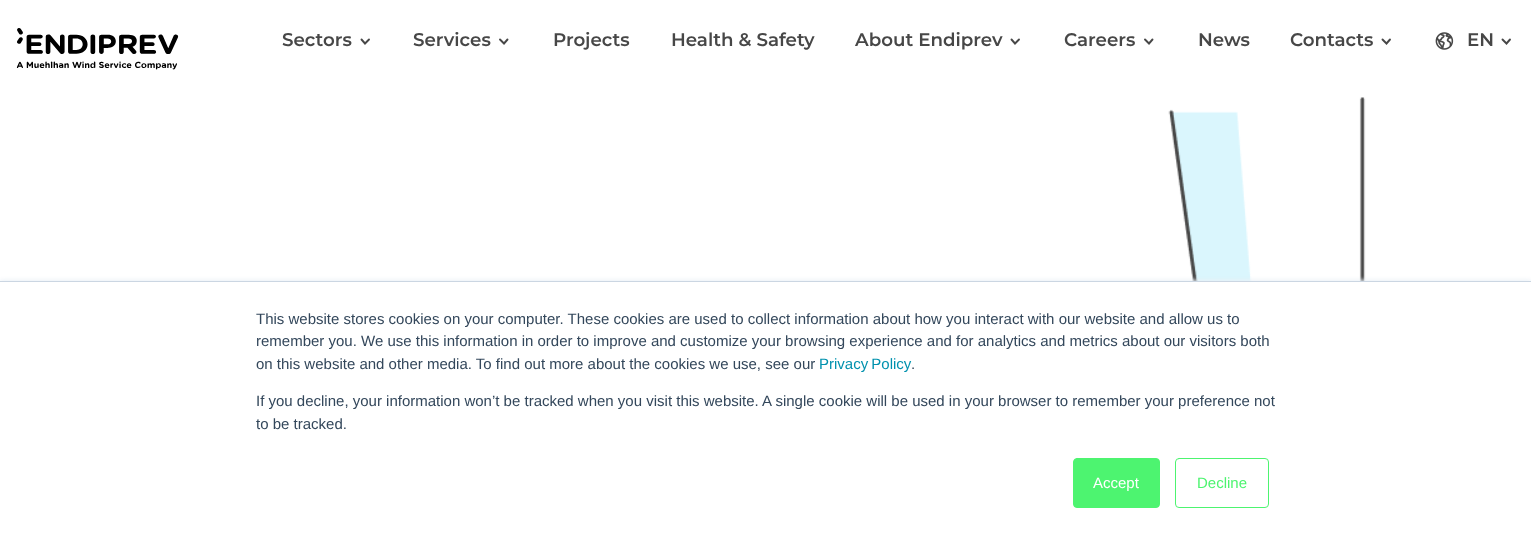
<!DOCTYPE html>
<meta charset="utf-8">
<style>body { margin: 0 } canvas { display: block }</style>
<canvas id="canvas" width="1531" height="540"></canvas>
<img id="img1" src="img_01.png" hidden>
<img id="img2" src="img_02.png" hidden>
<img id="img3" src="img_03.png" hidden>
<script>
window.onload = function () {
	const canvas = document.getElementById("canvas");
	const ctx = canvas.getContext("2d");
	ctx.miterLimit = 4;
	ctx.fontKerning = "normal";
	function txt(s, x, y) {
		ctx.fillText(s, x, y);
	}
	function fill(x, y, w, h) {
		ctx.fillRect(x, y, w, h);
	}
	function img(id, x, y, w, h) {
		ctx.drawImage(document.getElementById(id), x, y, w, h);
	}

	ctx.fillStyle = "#FFFFFF";
	fill(0, 0, 1531, 540);
	img("img1", 16, 28, 163, 42);
	ctx.beginPath();
	ctx.moveTo(361.5, 39.5);
	ctx.lineTo(365, 43.5);
	ctx.lineTo(369, 39.5);
	ctx.strokeStyle = "#474747";
	ctx.lineWidth = 1.9;
	ctx.lineCap = "round";
	ctx.stroke();
	ctx.beginPath();
	ctx.moveTo(500, 39.5);
	ctx.lineTo(504, 43.5);
	ctx.lineTo(507.5, 39.5);
	ctx.stroke();
	ctx.beginPath();
	ctx.moveTo(1011.5, 39.5);
	ctx.lineTo(1015, 43.5);
	ctx.lineTo(1019, 39.5);
	ctx.stroke();
	ctx.beginPath();
	ctx.moveTo(1145, 39.5);
	ctx.lineTo(1149, 43.5);
	ctx.lineTo(1152.5, 39.5);
	ctx.stroke();
	ctx.beginPath();
	ctx.moveTo(1382.5, 39.5);
	ctx.lineTo(1386.5, 43.5);
	ctx.lineTo(1390, 39.5);
	ctx.stroke();
	img("img2", 1435, 32, 19, 18);
	ctx.beginPath();
	ctx.moveTo(1502.5, 39.5);
	ctx.lineTo(1506.5, 43.5);
	ctx.lineTo(1510, 39.5);
	ctx.stroke();
	img("img3", 1168, 97, 198, 184);
	ctx.fillStyle = "#EAF0F6";
	ctx.filter = "blur(2px)";
	ctx.beginPath();
	ctx.rect(0, 280, 1531, 259);
	ctx.fill();
	ctx.filter = "none";
	ctx.fillStyle = "#FFFFFF";
	fill(0, 282, 1531, 258);
	ctx.fillStyle = "#CBD6E2";
	fill(0, 281, 1531, 1);
	ctx.fillStyle = "#4DF470";
	ctx.beginPath();
	ctx.roundRect(1073.5, 458.5, 86, 49, 3.5);
	ctx.fill();
	ctx.strokeStyle = "#4DF470";
	ctx.lineWidth = 1;
	ctx.stroke();
	ctx.beginPath();
	ctx.roundRect(1175.5, 458.5, 93, 49, 3.5);
	ctx.stroke();
	ctx.font = "600 18.25px Montserrat";
	ctx.fillStyle = "#474747";
	txt("Sectors", 282, 46);
	txt("Services", 413, 46);
	txt("Projects", 553, 46);
	txt("Health & Safety", 671, 46);
	txt("About Endiprev", 855, 46);
	txt("Careers", 1064, 46);
	txt("News", 1198, 46);
	txt("Contacts", 1290, 46);
	txt("EN", 1467, 46);
	ctx.font = "15px Liberation Sans";
	ctx.fillStyle = "#33475B";
	txt("This website stores cookies on your computer. These cookies are used to collect information about how you interact with our website and allow us to", 256, 324);
	txt("remember you. We use this information in order to improve and customize your browsing experience and for analytics and metrics about our visitors both", 256, 346);
	txt("on this website and other media. To find out more about the cookies we use, see our", 256, 369);
	ctx.wordSpacing = "-1px";
	ctx.fillStyle = "#0091AE";
	txt("Privacy Policy", 819, 369);
	ctx.wordSpacing = "0px";
	ctx.fillStyle = "#33475B";
	txt(".", 911, 369);
	txt("If you decline, your information won’t be tracked when you visit this website. A single cookie will be used in your browser to remember your preference not", 256, 406);
	txt("to be tracked.", 256, 429);
	ctx.fillStyle = "#FFFFFF";
	txt("Accept", 1093, 488);
	ctx.fillStyle = "#4DF470";
	txt("Decline", 1197, 488);
};
</script>
